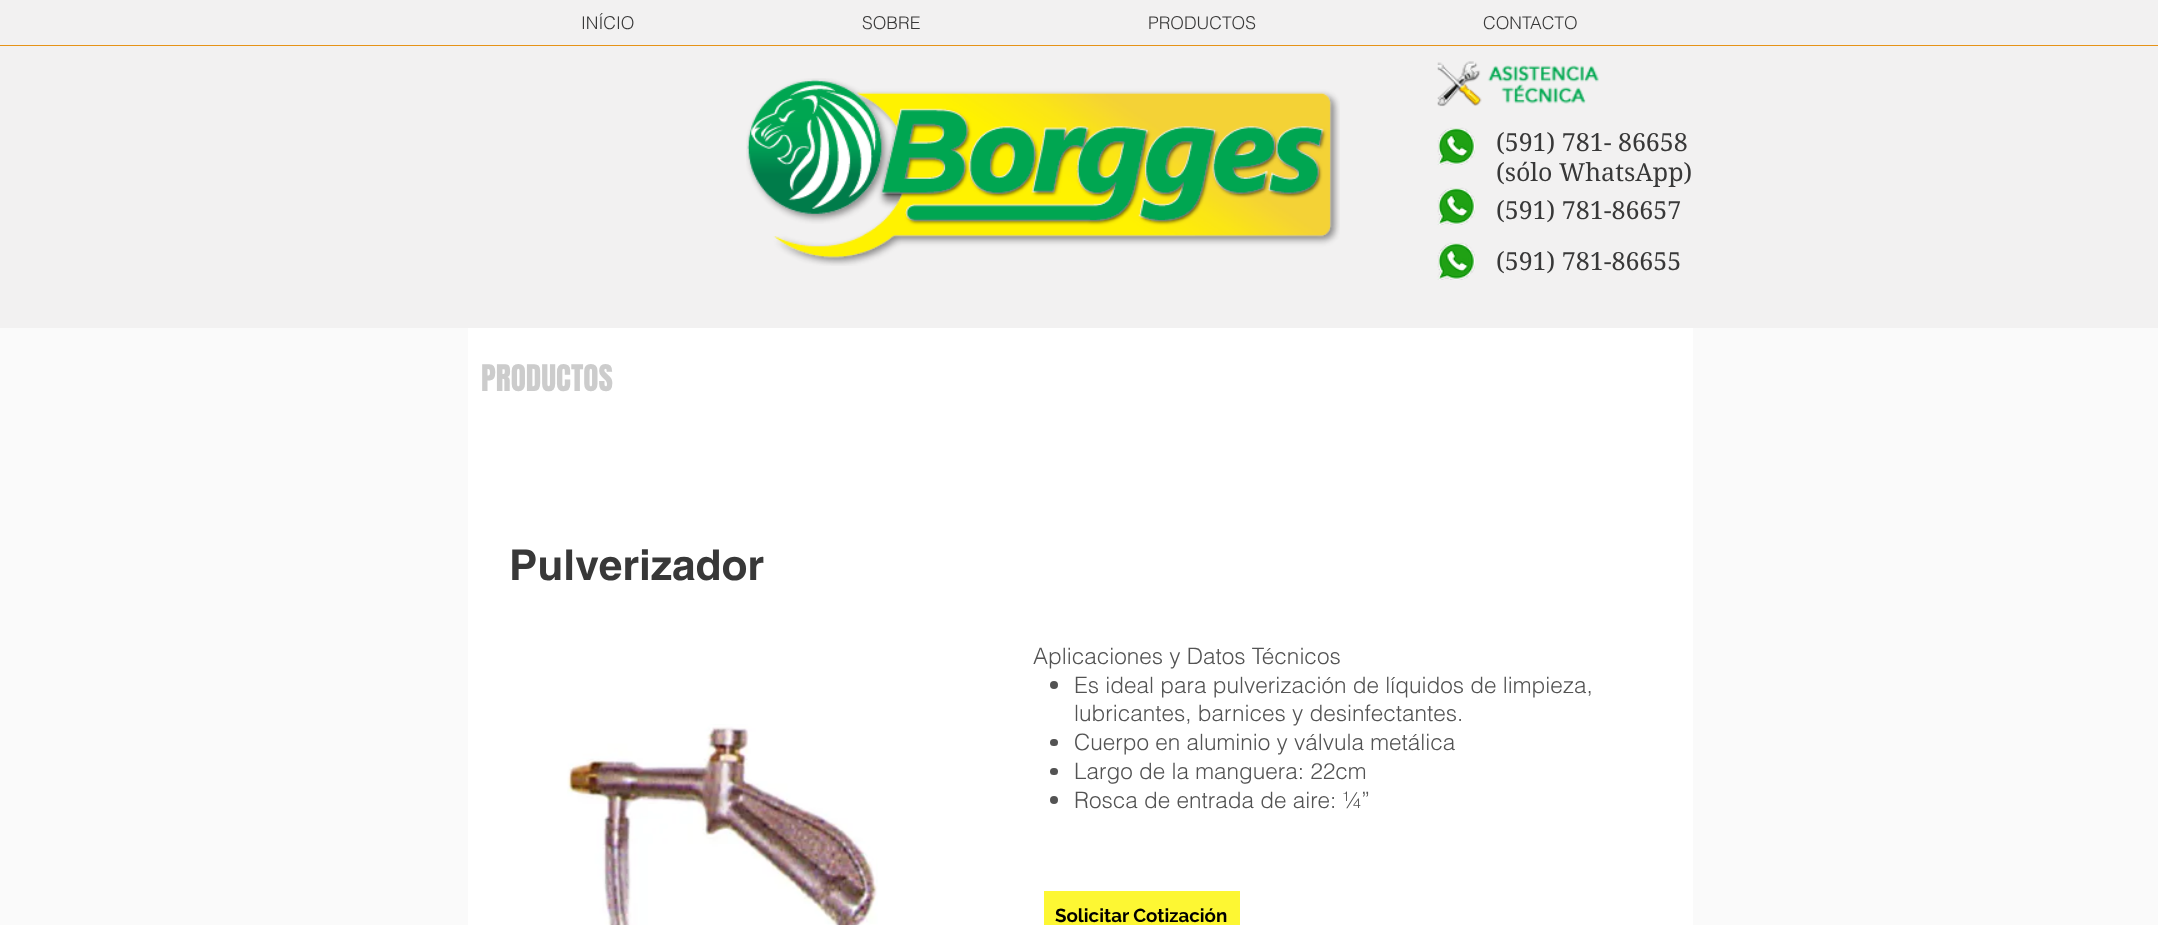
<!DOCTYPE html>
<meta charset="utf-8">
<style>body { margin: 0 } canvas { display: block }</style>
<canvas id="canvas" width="2158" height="925"></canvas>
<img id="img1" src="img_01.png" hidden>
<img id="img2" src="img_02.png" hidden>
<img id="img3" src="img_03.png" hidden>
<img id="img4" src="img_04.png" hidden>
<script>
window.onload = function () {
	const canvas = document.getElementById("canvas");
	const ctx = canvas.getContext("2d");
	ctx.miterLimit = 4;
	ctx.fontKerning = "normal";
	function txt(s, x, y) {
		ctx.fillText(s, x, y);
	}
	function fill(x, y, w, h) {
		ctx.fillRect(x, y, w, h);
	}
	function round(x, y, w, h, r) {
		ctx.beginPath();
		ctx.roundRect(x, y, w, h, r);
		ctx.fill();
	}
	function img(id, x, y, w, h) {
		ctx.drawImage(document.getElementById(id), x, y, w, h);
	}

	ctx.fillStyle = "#FAFAFA";
	fill(0, 0, 2158, 925);
	ctx.fillStyle = "#F2F1F1";
	fill(0, 0, 2158, 328);
	ctx.fillStyle = "#E69317";
	fill(0, 45, 2158, 1);
	img("img1", 746, 78, 594, 188);
	img("img2", 1437, 61, 162, 46);
	img("img3", 1437, 127, 38, 38);
	img("img3", 1437, 187, 38, 38);
	img("img3", 1437, 242, 38, 38);
	ctx.fillStyle = "#FFFFFF";
	fill(468, 328, 1225, 597);
	img("img4", 567, 724, 311, 201);
	ctx.fillStyle = "#535353";
	ctx.beginPath();
	ctx.arc(1054, 685, 4, 0, Math.PI * 2);
	ctx.fill();
	round(1050, 739, 8, 7, 3.5);
	round(1050, 768, 8, 7, 3.5);
	ctx.beginPath();
	ctx.arc(1054, 800, 4, 0, Math.PI * 2);
	ctx.fill();
	ctx.fillStyle = "#FDF733";
	fill(1044, 891, 196, 34);
	ctx.font = "300 17.5px helvetica";
	ctx.fillStyle = "#383838";
	txt("INÍCIO", 581, 29);
	txt("SOBRE", 862, 29);
	txt("PRODUCTOS", 1148, 29);
	txt("CONTACTO", 1483, 29);
	ctx.font = "25px 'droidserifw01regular'";
	txt("(591) 781- 86658", 1496, 151);
	txt("(sólo WhatsApp)", 1496, 181);
	txt("(591) 781-86657", 1496, 219);
	txt("(591) 781-86655", 1496, 270);
	ctx.font = "31.25px Anton";
	ctx.fillStyle = "#CCCCCC";
	txt("PRODUCTOS", 481, 391);
	ctx.font = "bold 42.5px helvetica";
	ctx.fillStyle = "#383838";
	txt("Pulverizador", 509, 580);
	ctx.font = "300 22.5px helvetica";
	ctx.fillStyle = "#535353";
	txt("Aplicaciones y Datos Técnicos", 1033, 664);
	txt("Es ideal para pulverización de líquidos de limpieza,", 1074, 693);
	txt("lubricantes, barnices y desinfectantes.", 1074, 721);
	txt("Cuerpo en aluminio y válvula metálica", 1074, 750);
	txt("Largo de la manguera: 22cm", 1074, 779);
	txt("Rosca de entrada de aire: ¼”", 1074, 808);
	ctx.font = "bold 18.75px Raleway";
	ctx.fillStyle = "#000000";
	txt("Solicitar Cotización", 1055, 922);
};
</script>
